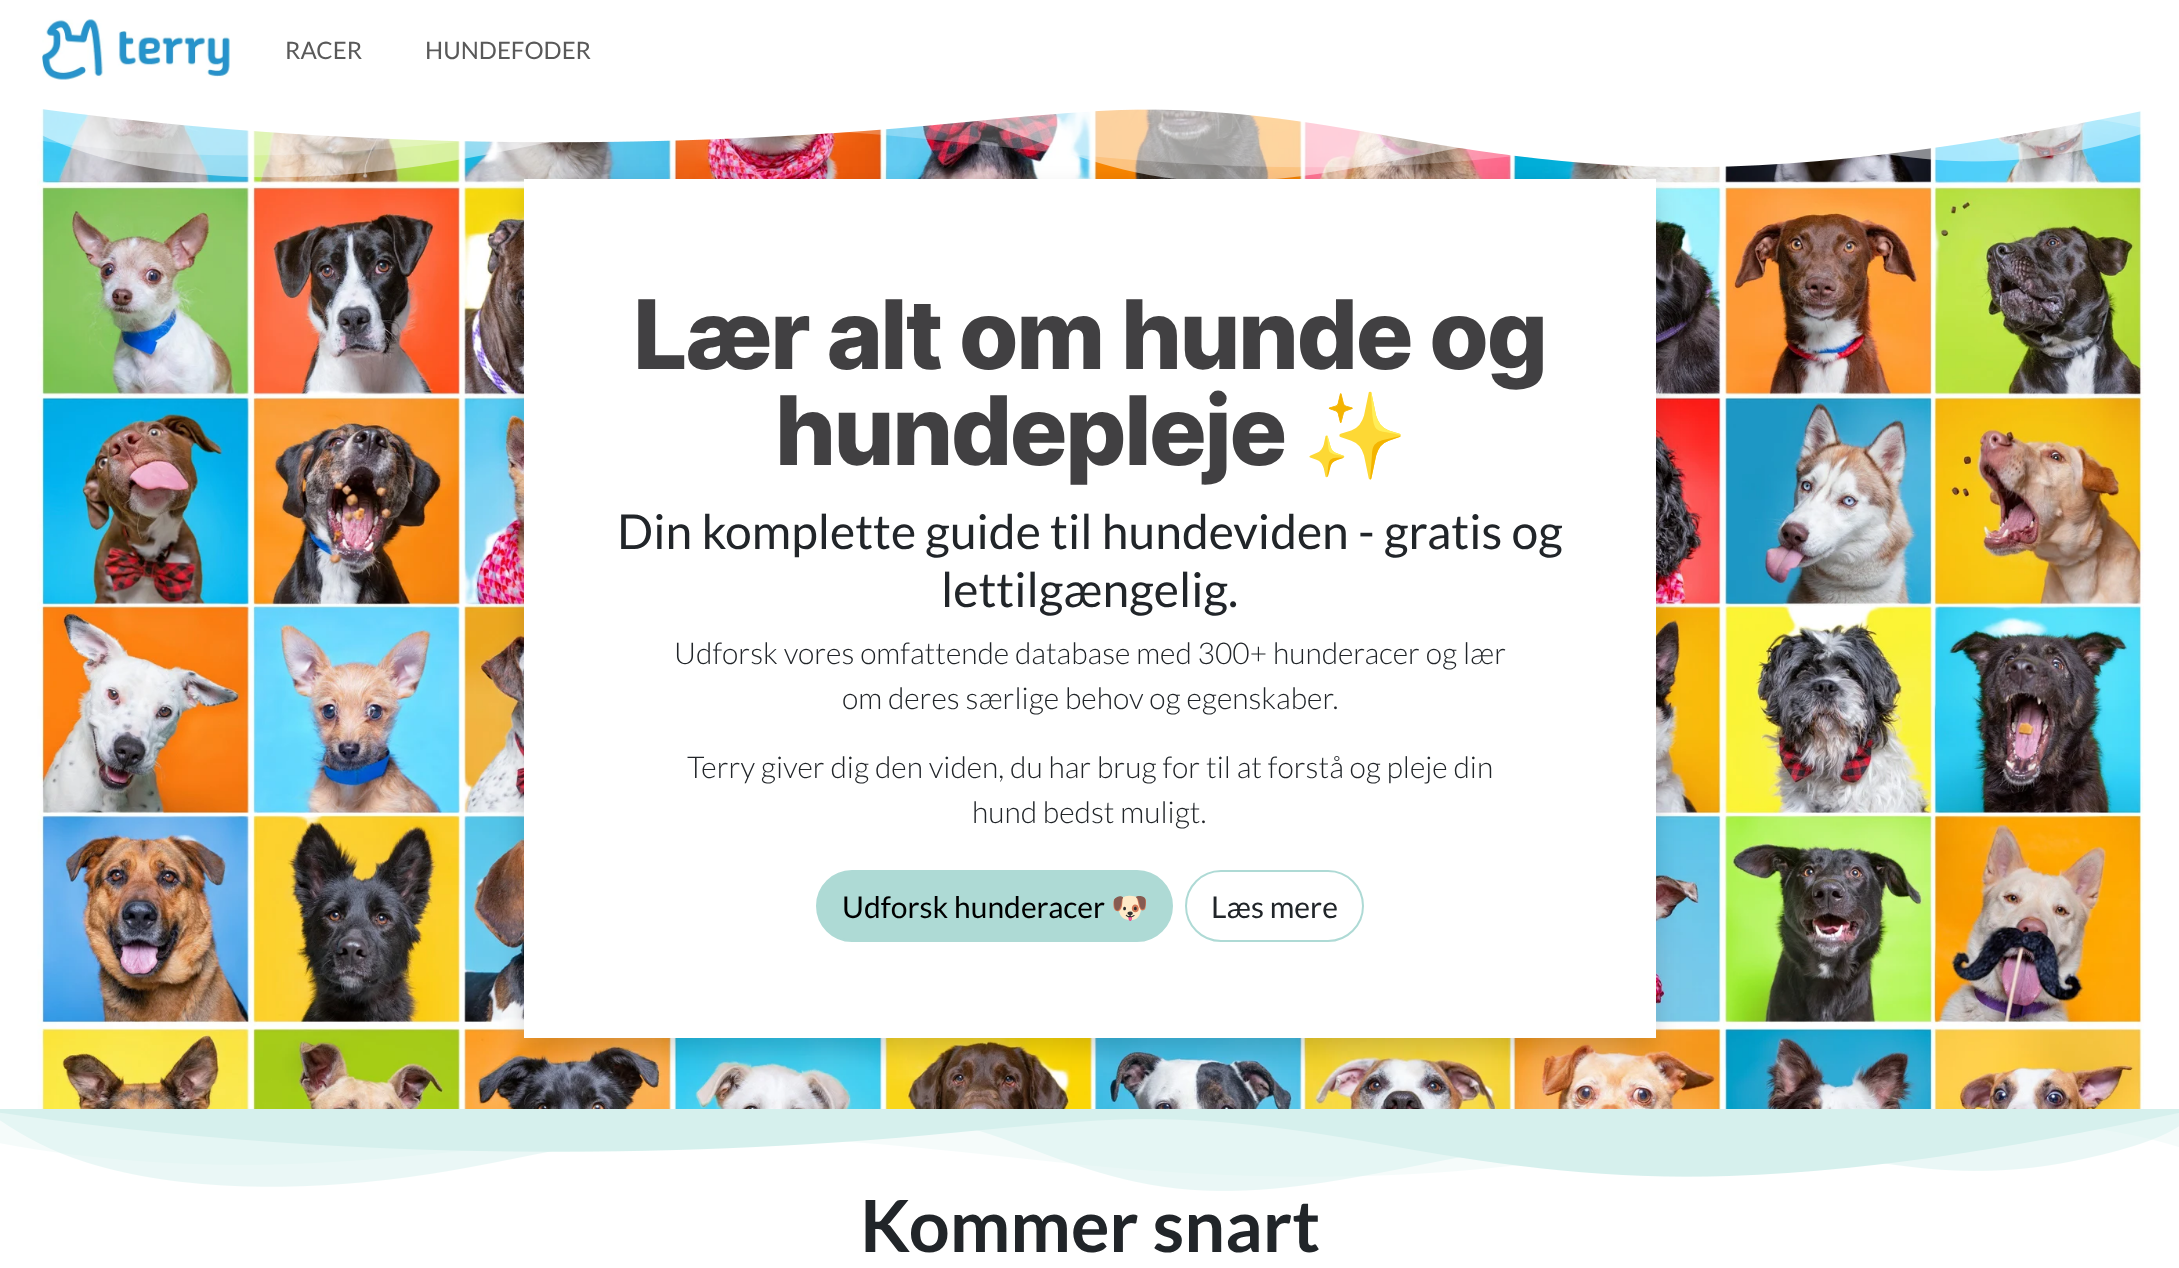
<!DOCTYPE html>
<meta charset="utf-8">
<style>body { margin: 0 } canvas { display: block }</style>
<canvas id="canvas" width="2179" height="1268"></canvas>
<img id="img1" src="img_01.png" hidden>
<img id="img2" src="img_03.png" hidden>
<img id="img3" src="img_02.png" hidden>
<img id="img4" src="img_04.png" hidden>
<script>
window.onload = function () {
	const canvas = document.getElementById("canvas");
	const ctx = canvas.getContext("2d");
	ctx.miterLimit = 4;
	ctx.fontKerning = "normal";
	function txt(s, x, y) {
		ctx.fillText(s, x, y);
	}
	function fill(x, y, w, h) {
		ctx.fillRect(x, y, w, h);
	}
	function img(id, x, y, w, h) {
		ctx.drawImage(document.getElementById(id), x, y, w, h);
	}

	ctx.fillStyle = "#FFFFFF";
	fill(0, 0, 2179, 1268);
	img("img1", 42, 19, 188, 61);
	img("img2", 37, 108, 2107, 1001);
	ctx.fillStyle = "rgba(0, 0, 0, 0.15)";
	ctx.filter = "blur(12px)";
	ctx.beginPath();
	ctx.rect(524, 191, 1132, 859);
	ctx.fill();
	ctx.filter = "none";
	img("img3", 0, 99, 2179, 80);
	ctx.fillStyle = "#FFFFFF";
	fill(524, 179, 1132, 859);
	ctx.fillStyle = "#AEDAD5";
	ctx.beginPath();
	ctx.roundRect(817, 871, 355, 70, 35);
	ctx.fill();
	ctx.strokeStyle = "#AEDAD5";
	ctx.lineWidth = 2;
	ctx.stroke();
	ctx.beginPath();
	ctx.roundRect(1186, 871, 177, 70, 35);
	ctx.stroke();
	img("img4", 0, 1109, 2179, 82);
	ctx.font = "24px Lato";
	ctx.fillStyle = "#595959";
	txt("RACER", 285, 59);
	txt("HUNDEFODER", 425, 59);
	ctx.letterSpacing = "-2.4px";
	ctx.font = "800 96px Inter";
	ctx.fillStyle = "#414042";
	txt("Lær alt om hunde og", 633, 369);
	txt("hundepleje", 775, 465);
	ctx.font = "bold 84px Noto Color Emoji";
	txt("✨", 1303, 465);
	ctx.letterSpacing = "0px";
	ctx.font = "48px Lato";
	ctx.fillStyle = "#212529";
	txt("Din komplette guide til hundeviden - gratis og", 617, 549);
	txt("lettilgængelig.", 941, 607);
	ctx.font = "300 30px Lato";
	txt("Udforsk vores omfattende database med 300+ hunderacer og lær", 674, 664);
	txt("om deres særlige behov og egenskaber.", 842, 709);
	txt("Terry giver dig den viden, du har brug for til at forstå og pleje din", 687, 778);
	txt("hund bedst muligt.", 972, 823);
	ctx.font = "30px Lato";
	ctx.fillStyle = "#000000";
	txt("Udforsk hunderacer", 842, 918);
	ctx.font = "30px Noto Color Emoji";
	txt("🐶", 1111, 918);
	ctx.font = "30px Lato";
	ctx.fillStyle = "#212529";
	txt("Læs mere", 1211, 918);
	ctx.font = "bold 72px Lato";
	txt("Kommer snart", 860, 1252);
};
</script>
